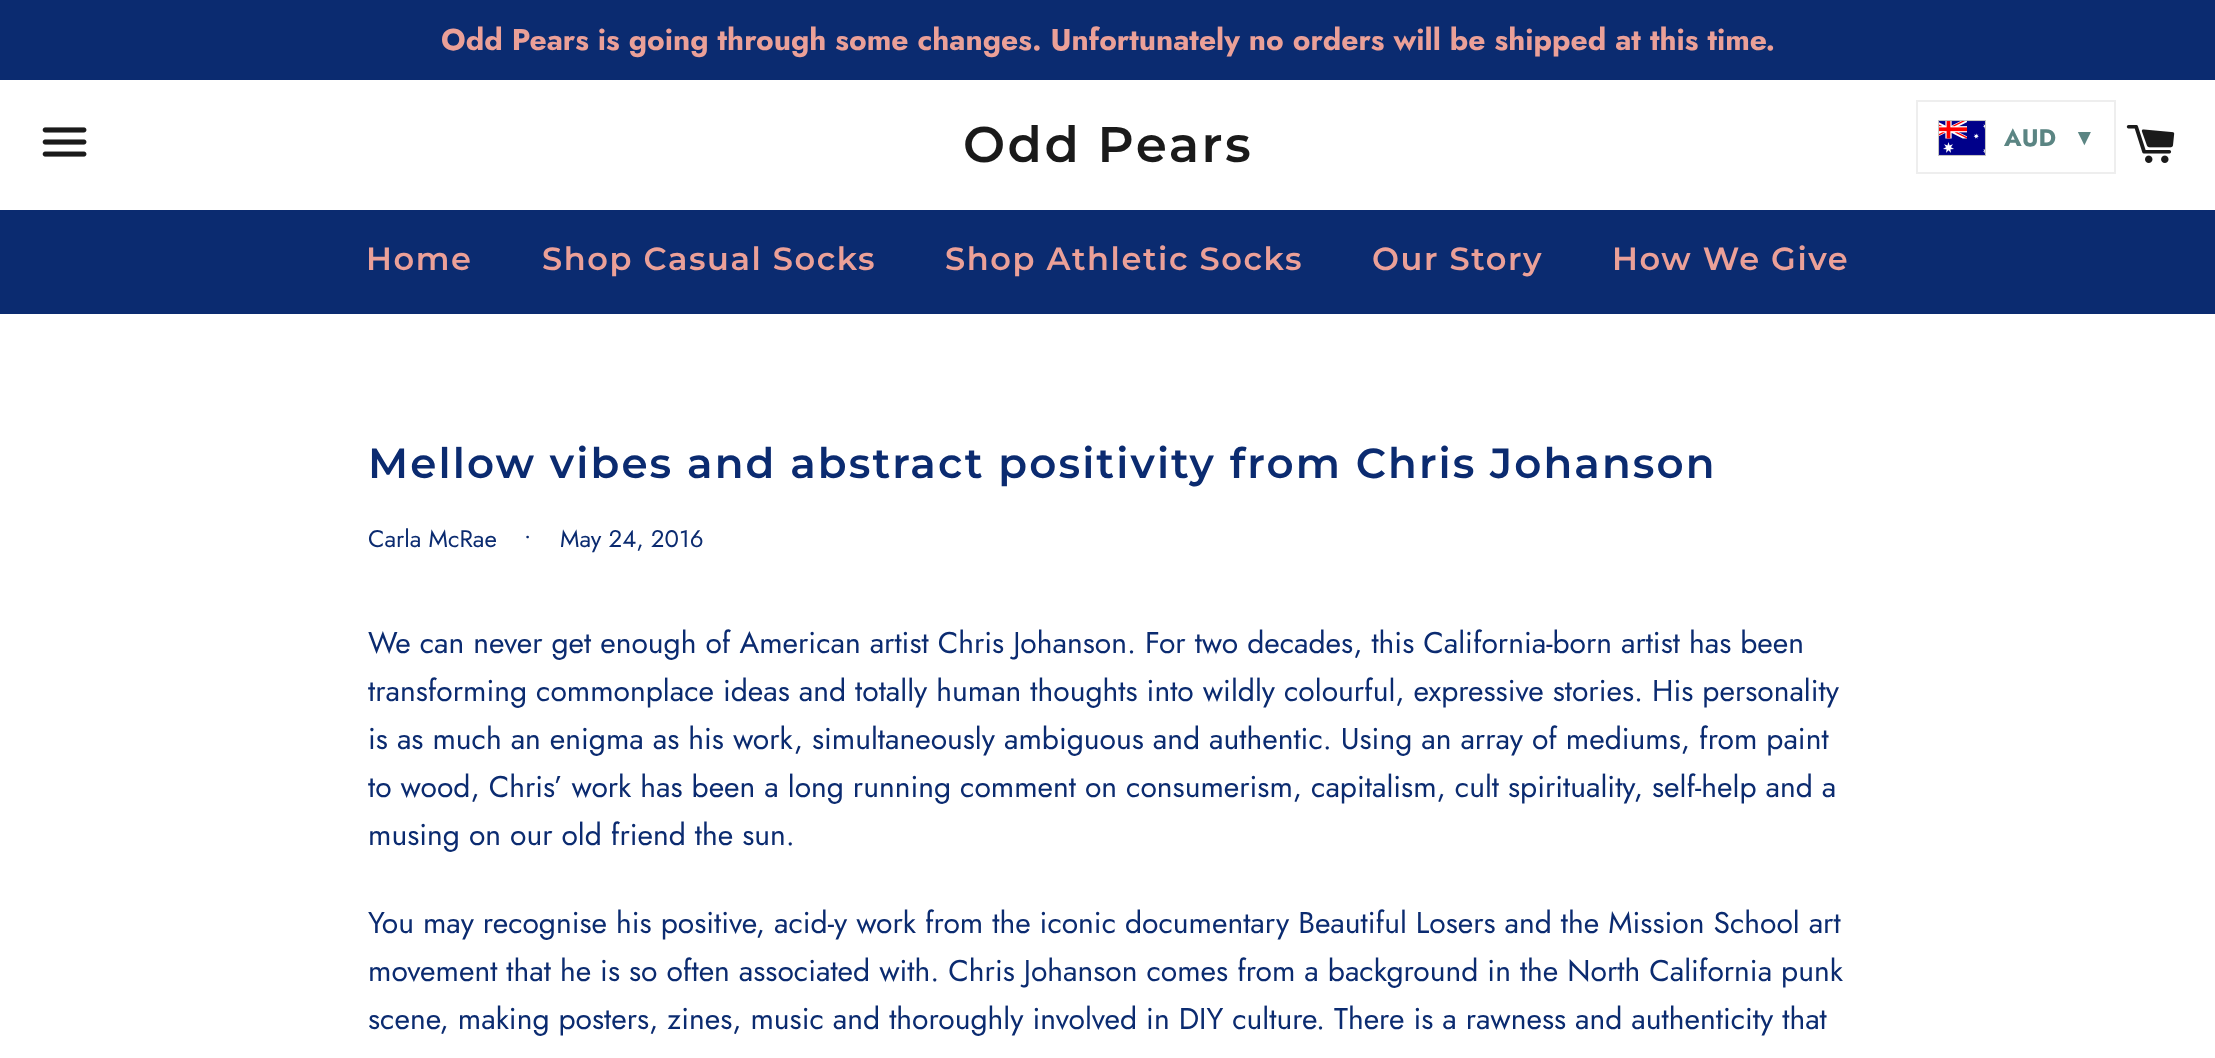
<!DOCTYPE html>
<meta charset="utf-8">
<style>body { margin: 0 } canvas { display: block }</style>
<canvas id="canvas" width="2215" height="1058"></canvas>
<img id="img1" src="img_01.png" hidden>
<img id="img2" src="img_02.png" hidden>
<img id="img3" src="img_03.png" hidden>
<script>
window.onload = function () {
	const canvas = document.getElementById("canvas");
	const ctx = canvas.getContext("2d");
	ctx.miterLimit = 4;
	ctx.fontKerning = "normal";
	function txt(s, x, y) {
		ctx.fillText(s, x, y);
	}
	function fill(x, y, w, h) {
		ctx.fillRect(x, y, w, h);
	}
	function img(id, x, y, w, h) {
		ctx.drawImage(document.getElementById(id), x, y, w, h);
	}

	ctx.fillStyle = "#FFFFFF";
	fill(0, 0, 2215, 1058);
	ctx.fillStyle = "#0B2B70";
	fill(0, 0, 2215, 80);
	img("img1", 42, 127, 45, 30);
	img("img2", 2126, 125, 49, 38);
	fill(0, 210, 2215, 104);
	img("img3", 1938, 120, 48, 36);
	ctx.strokeStyle = "#EEEEEE";
	ctx.lineWidth = 2;
	ctx.strokeRect(1917, 101, 198, 72);
	ctx.font = "bold 30px Jost";
	ctx.fillStyle = "#EBA098";
	txt("Odd Pears is going through some changes. Unfortunately no orders will be shipped at this time.", 441, 50);
	ctx.letterSpacing = "2.5px";
	ctx.font = "600 50px Montserrat";
	ctx.fillStyle = "#1A1A1A";
	txt("Odd Pears", 963, 162);
	ctx.letterSpacing = "1.6px";
	ctx.font = "600 32px Montserrat";
	ctx.fillStyle = "#EBA098";
	txt("Home", 366, 270);
	txt("Shop Casual Socks", 542, 270);
	txt("Shop Athletic Socks", 945, 270);
	txt("Our Story", 1372, 270);
	txt("How We Give", 1612, 270);
	ctx.letterSpacing = "2.1px";
	ctx.font = "600 42px Montserrat";
	ctx.fillStyle = "#0B2B70";
	txt("Mellow vibes and abstract positivity from Chris Johanson", 368, 478);
	ctx.letterSpacing = "0px";
	ctx.font = "24px Jost";
	txt("Carla McRae", 368, 547);
	txt("•", 524, 547);
	txt("May 24, 2016", 560, 547);
	ctx.font = "30px Jost";
	txt("We can never get enough of American artist Chris Johanson. For two decades, this California-born artist has been", 368, 653);
	txt("transforming commonplace ideas and totally human thoughts into wildly colourful, expressive stories. His personality", 368, 701);
	txt("is as much an enigma as his work, simultaneously ambiguous and authentic. Using an array of mediums, from paint", 368, 749);
	txt("to wood, Chris’ work has been a long running comment on consumerism, capitalism, cult spirituality, self-help and a", 368, 797);
	txt("musing on our old friend the sun.", 368, 845);
	txt("You may recognise his positive, acid-y work from the iconic documentary Beautiful Losers and the Mission School art", 368, 933);
	txt("movement that he is so often associated with. Chris Johanson comes from a background in the North California punk", 368, 981);
	txt("scene, making posters, zines, music and thoroughly involved in DIY culture. There is a rawness and authenticity that", 368, 1029);
	ctx.font = "bold 24px Jost";
	ctx.fillStyle = "#5B8583";
	txt("AUD", 2004, 146);
	ctx.font = "bold 24px DejaVu Sans";
	txt("▾", 2078, 145);
};
</script>
